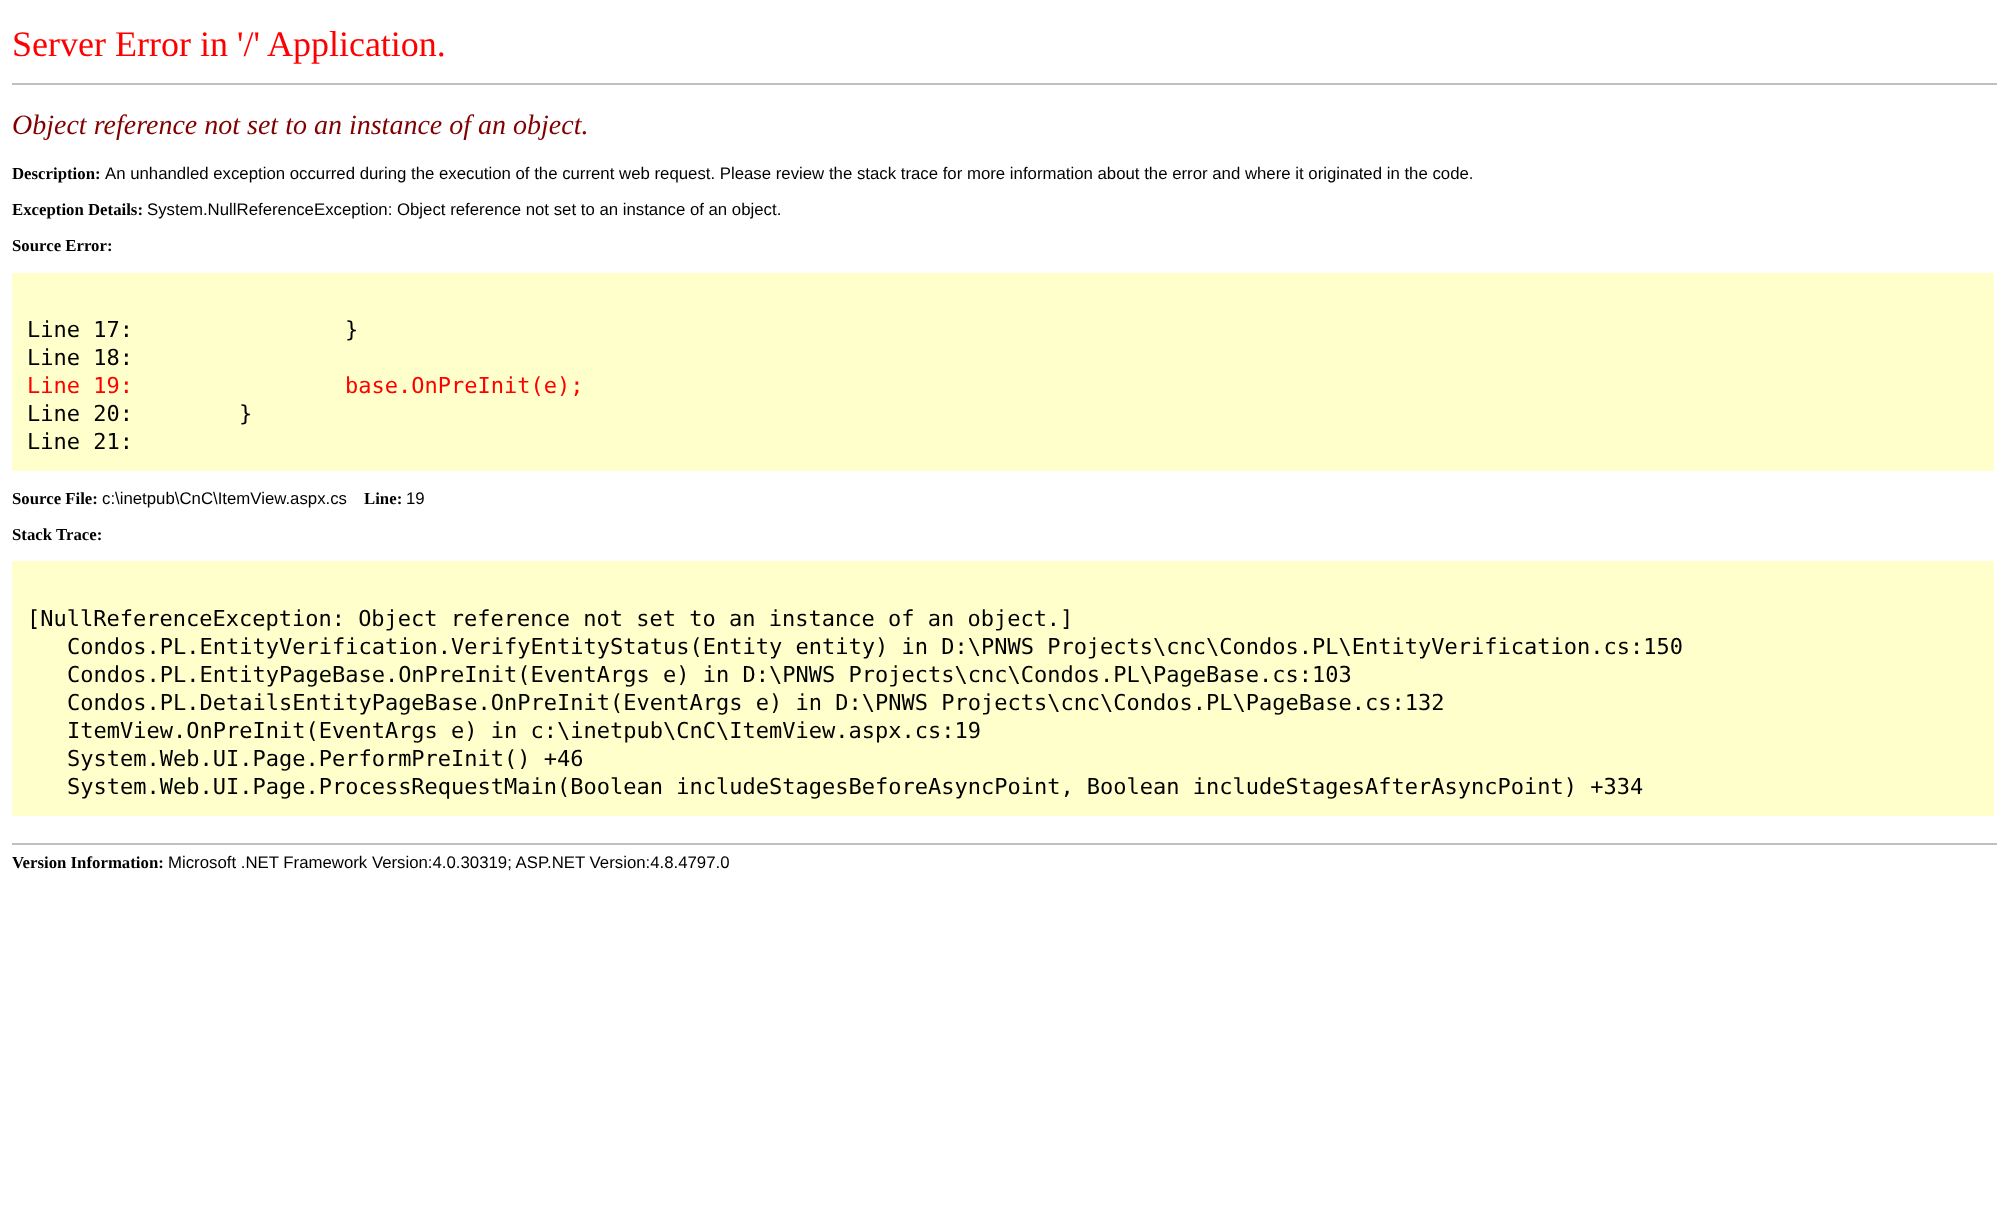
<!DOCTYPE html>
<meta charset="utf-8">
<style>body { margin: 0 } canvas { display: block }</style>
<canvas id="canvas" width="2005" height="1215"></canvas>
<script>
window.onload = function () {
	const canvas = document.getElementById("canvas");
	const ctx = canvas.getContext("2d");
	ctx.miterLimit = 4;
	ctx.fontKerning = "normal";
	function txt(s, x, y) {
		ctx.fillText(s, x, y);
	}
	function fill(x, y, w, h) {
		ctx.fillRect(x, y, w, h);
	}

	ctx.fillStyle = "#FFFFFF";
	fill(0, 0, 2005, 1215);
	ctx.fillStyle = "#C0C0C0";
	fill(12, 83, 1985, 2);
	ctx.fillStyle = "#FFFFCC";
	fill(12, 273, 1982, 198);
	fill(12, 561, 1982, 255);
	ctx.fillStyle = "#C0C0C0";
	fill(12, 843, 1985, 2);
	ctx.font = "36px Liberation Serif";
	ctx.fillStyle = "#FF0000";
	txt("Server Error in '/' Application.", 12, 56);
	ctx.font = "italic 28px Liberation Serif";
	ctx.fillStyle = "#800000";
	txt("Object reference not set to an instance of an object.", 12, 134);
	ctx.font = "bold 16.8px Liberation Serif";
	ctx.fillStyle = "#000000";
	txt("Description:", 12, 179);
	ctx.font = "16.8px Liberation Sans";
	txt("An unhandled exception occurred during the execution of the current web request. Please review the stack trace for more information about the error and where it originated in the code.", 105, 179);
	ctx.font = "bold 16.8px Liberation Serif";
	txt("Exception Details:", 12, 215);
	ctx.font = "16.8px Liberation Sans";
	txt("System.NullReferenceException: Object reference not set to an instance of an object.", 147, 215);
	ctx.font = "bold 16.8px Liberation Serif";
	txt("Source Error:", 12, 251);
	ctx.font = "22px DejaVu Sans Mono";
	txt("Line 17:", 27, 337);
	txt("}", 345, 337);
	txt("Line 18:", 27, 365);
	ctx.fillStyle = "#FF0000";
	txt("Line 19:", 27, 393);
	txt("base.OnPreInit(e);", 345, 393);
	ctx.fillStyle = "#000000";
	txt("Line 20:", 27, 421);
	txt("}", 239, 421);
	txt("Line 21:", 27, 449);
	ctx.font = "bold 16.8px Liberation Serif";
	txt("Source File:", 12, 504);
	ctx.font = "16.8px Liberation Sans";
	txt("c:\\inetpub\\CnC\\ItemView.aspx.cs", 102, 504);
	ctx.font = "bold 16.8px Liberation Serif";
	txt("Line:", 364, 504);
	ctx.font = "16.8px Liberation Sans";
	txt("19", 406, 504);
	ctx.font = "bold 16.8px Liberation Serif";
	txt("Stack Trace:", 12, 540);
	ctx.font = "22px DejaVu Sans Mono";
	txt("[NullReferenceException: Object reference not set to an instance of an object.]", 27, 626);
	txt("Condos.PL.EntityVerification.VerifyEntityStatus(Entity entity) in D:\\PNWS Projects\\cnc\\Condos.PL\\EntityVerification.cs:150", 67, 654);
	txt("Condos.PL.EntityPageBase.OnPreInit(EventArgs e) in D:\\PNWS Projects\\cnc\\Condos.PL\\PageBase.cs:103", 67, 682);
	txt("Condos.PL.DetailsEntityPageBase.OnPreInit(EventArgs e) in D:\\PNWS Projects\\cnc\\Condos.PL\\PageBase.cs:132", 67, 710);
	txt("ItemView.OnPreInit(EventArgs e) in c:\\inetpub\\CnC\\ItemView.aspx.cs:19", 67, 738);
	txt("System.Web.UI.Page.PerformPreInit() +46", 67, 766);
	txt("System.Web.UI.Page.ProcessRequestMain(Boolean includeStagesBeforeAsyncPoint, Boolean includeStagesAfterAsyncPoint) +334", 67, 794);
	ctx.font = "bold 16.8px Liberation Serif";
	txt("Version Information:", 12, 868);
	ctx.font = "16.8px Liberation Sans";
	txt("Microsoft .NET Framework Version:4.0.30319; ASP.NET Version:4.8.4797.0", 168, 868);
};
</script>
